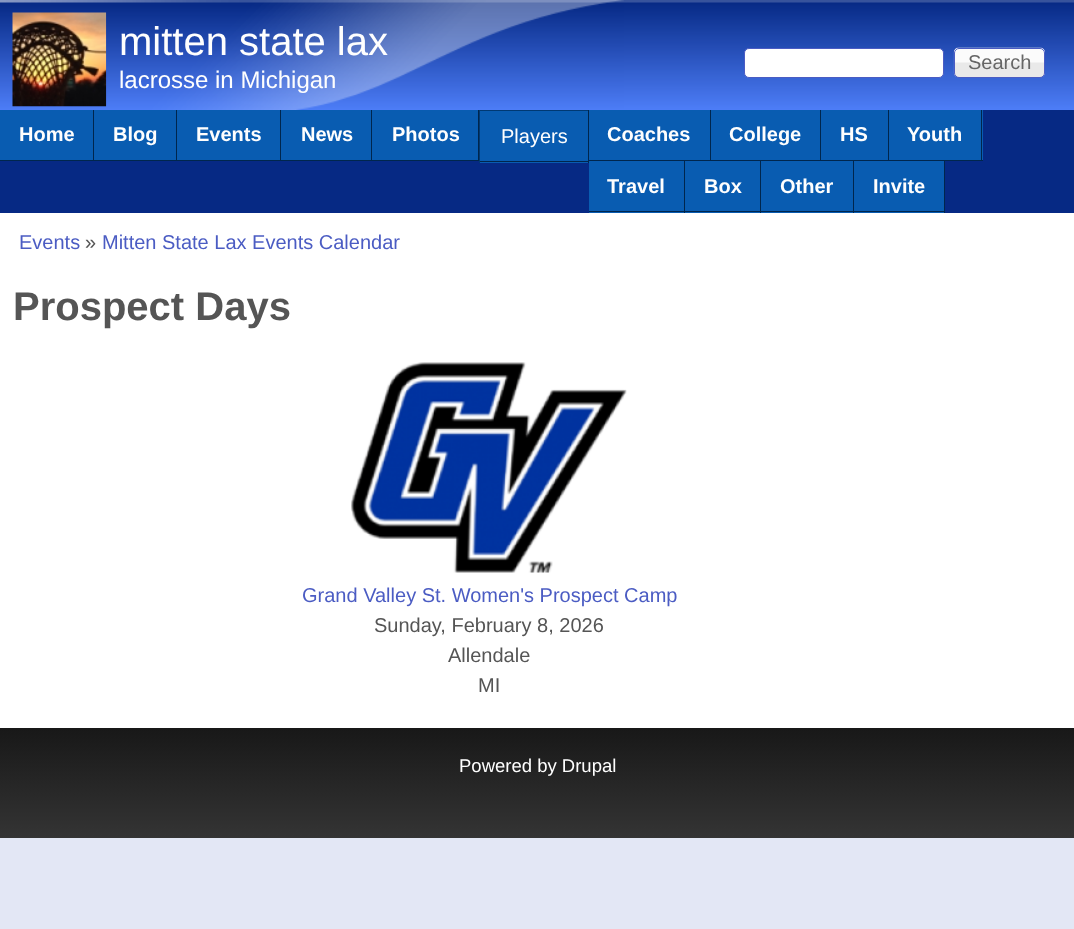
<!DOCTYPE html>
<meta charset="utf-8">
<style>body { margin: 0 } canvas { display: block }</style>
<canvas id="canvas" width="1074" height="929"></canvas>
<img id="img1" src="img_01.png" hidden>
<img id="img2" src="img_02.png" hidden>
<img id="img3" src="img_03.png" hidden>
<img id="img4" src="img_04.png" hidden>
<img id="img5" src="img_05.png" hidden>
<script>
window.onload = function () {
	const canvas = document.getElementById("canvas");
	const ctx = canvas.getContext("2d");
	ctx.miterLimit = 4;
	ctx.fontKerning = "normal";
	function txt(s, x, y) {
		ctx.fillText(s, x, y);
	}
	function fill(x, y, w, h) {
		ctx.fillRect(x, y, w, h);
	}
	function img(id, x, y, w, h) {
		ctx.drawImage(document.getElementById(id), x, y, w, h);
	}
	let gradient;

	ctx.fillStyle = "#E3E7F5";
	fill(0, 0, 1074, 929);
	ctx.fillStyle = "#FFFFFF";
	fill(0, 213, 1074, 515);
	img("img1", 624, 0, 450, 110);
	img("img2", 0, 0, 624, 110);
	img("img3", 12, 12, 95, 95);
	ctx.beginPath();
	ctx.roundRect(744.5, 48.5, 199, 29, 4.5);
	ctx.fill();
	ctx.strokeStyle = "#4B5CC3";
	ctx.stroke();
	img("img4", 953, 47, 92, 31);
	ctx.beginPath();
	ctx.roundRect(954.5, 48.5, 90, 29, 4.5);
	ctx.stroke();
	ctx.fillStyle = "#062984";
	fill(0, 110, 1074, 103);
	ctx.fillStyle = "#095CB1";
	fill(0, 110, 93, 50);
	ctx.fillStyle = "#00264D";
	fill(93, 110, 1, 51);
	fill(0, 160, 94, 1);
	ctx.fillStyle = "#095CB1";
	fill(94, 110, 186, 50);
	ctx.fillStyle = "#00264D";
	fill(176, 110, 1, 51);
	fill(94, 160, 84, 1);
	fill(280, 110, 1, 51);
	fill(178, 160, 103, 1);
	ctx.fillStyle = "#095CB1";
	fill(281, 110, 197, 50);
	ctx.fillStyle = "#00264D";
	fill(371, 110, 1, 51);
	fill(281, 160, 92, 1);
	fill(478, 110, 1, 51);
	fill(373, 160, 106, 1);
	ctx.fillStyle = "#095CB1";
	fill(480, 111, 108, 52);
	ctx.fillStyle = "#003973";
	fill(479, 110, 110, 1);
	ctx.fillStyle = "#00264D";
	fill(588, 110, 1, 53);
	fill(479, 161, 110, 1);
	ctx.fillStyle = "#003973";
	fill(479, 110, 1, 53);
	ctx.fillStyle = "#095CB1";
	fill(589, 110, 121, 50);
	ctx.fillStyle = "#00264D";
	fill(710, 110, 1, 51);
	fill(589, 160, 122, 1);
	ctx.fillStyle = "#095CB1";
	fill(711, 110, 109, 50);
	ctx.fillStyle = "#00264D";
	fill(820, 110, 1, 51);
	fill(711, 160, 110, 1);
	ctx.fillStyle = "#095CB1";
	fill(821, 110, 67, 50);
	ctx.fillStyle = "#00264D";
	fill(888, 110, 1, 51);
	fill(821, 160, 68, 1);
	ctx.fillStyle = "#095CB1";
	fill(889, 110, 94, 50);
	ctx.fillStyle = "#00264D";
	fill(981, 110, 1, 51);
	fill(889, 160, 94, 1);
	ctx.fillStyle = "#095CB1";
	fill(589, 161, 95, 52);
	ctx.fillStyle = "#00264D";
	fill(684, 161, 1, 52);
	fill(589, 211, 96, 1);
	ctx.fillStyle = "#095CB1";
	fill(685, 161, 75, 52);
	ctx.fillStyle = "#00264D";
	fill(760, 161, 1, 52);
	fill(685, 211, 76, 1);
	ctx.fillStyle = "#095CB1";
	fill(761, 161, 92, 52);
	ctx.fillStyle = "#00264D";
	fill(853, 161, 1, 52);
	fill(761, 211, 93, 1);
	ctx.fillStyle = "#095CB1";
	fill(854, 161, 90, 52);
	ctx.fillStyle = "#00264D";
	fill(944, 161, 1, 52);
	fill(854, 211, 91, 1);
	img("img5", 351, 362, 276, 211);
	gradient = ctx.createLinearGradient(0, 728, 0, 838);
	gradient.addColorStop(0, "#181818");
	gradient.addColorStop(1, "#343434");
	ctx.fillStyle = gradient;
	fill(0, 728, 1074, 110);
	ctx.font = "40px Liberation Sans";
	ctx.fillStyle = "#FEFEFE";
	txt("mitten state lax", 119, 55);
	ctx.font = "24px Liberation Sans";
	txt("lacrosse in Michigan", 119, 88);
	ctx.font = "20px Liberation Sans";
	ctx.fillStyle = "#666666";
	txt("Search", 968, 69);
	ctx.font = "bold 20px Liberation Sans";
	ctx.fillStyle = "#FEFEFE";
	txt("Home", 19, 141);
	txt("Blog", 113, 141);
	txt("Events", 196, 141);
	txt("News", 301, 141);
	txt("Photos", 392, 141);
	ctx.font = "20px Liberation Sans";
	txt("Players", 501, 143);
	ctx.font = "bold 20px Liberation Sans";
	txt("Coaches", 607, 141);
	txt("College", 729, 141);
	txt("HS", 840, 141);
	txt("Youth", 907, 141);
	txt("Travel", 607, 193);
	txt("Box", 704, 193);
	txt("Other", 780, 193);
	txt("Invite", 873, 193);
	ctx.font = "20px Liberation Sans";
	ctx.fillStyle = "#4B5CC3";
	txt("Events", 19, 249);
	ctx.fillStyle = "#555555";
	txt("»", 85, 249);
	ctx.fillStyle = "#4B5CC3";
	txt("Mitten State Lax Events Calendar", 102, 249);
	ctx.font = "bold 40px Liberation Sans";
	ctx.fillStyle = "#555555";
	txt("Prospect Days", 13, 320);
	ctx.font = "20px Liberation Sans";
	ctx.fillStyle = "#4B5CC3";
	txt("Grand Valley St. Women's Prospect Camp", 302, 602);
	ctx.fillStyle = "#555555";
	txt("Sunday, February 8, 2026", 374, 632);
	txt("Allendale", 448, 662);
	txt("MI", 478, 692);
	ctx.font = "18.5px Liberation Sans";
	ctx.fillStyle = "#FEFEFE";
	txt("Powered by Drupal", 459, 772);
};
</script>
